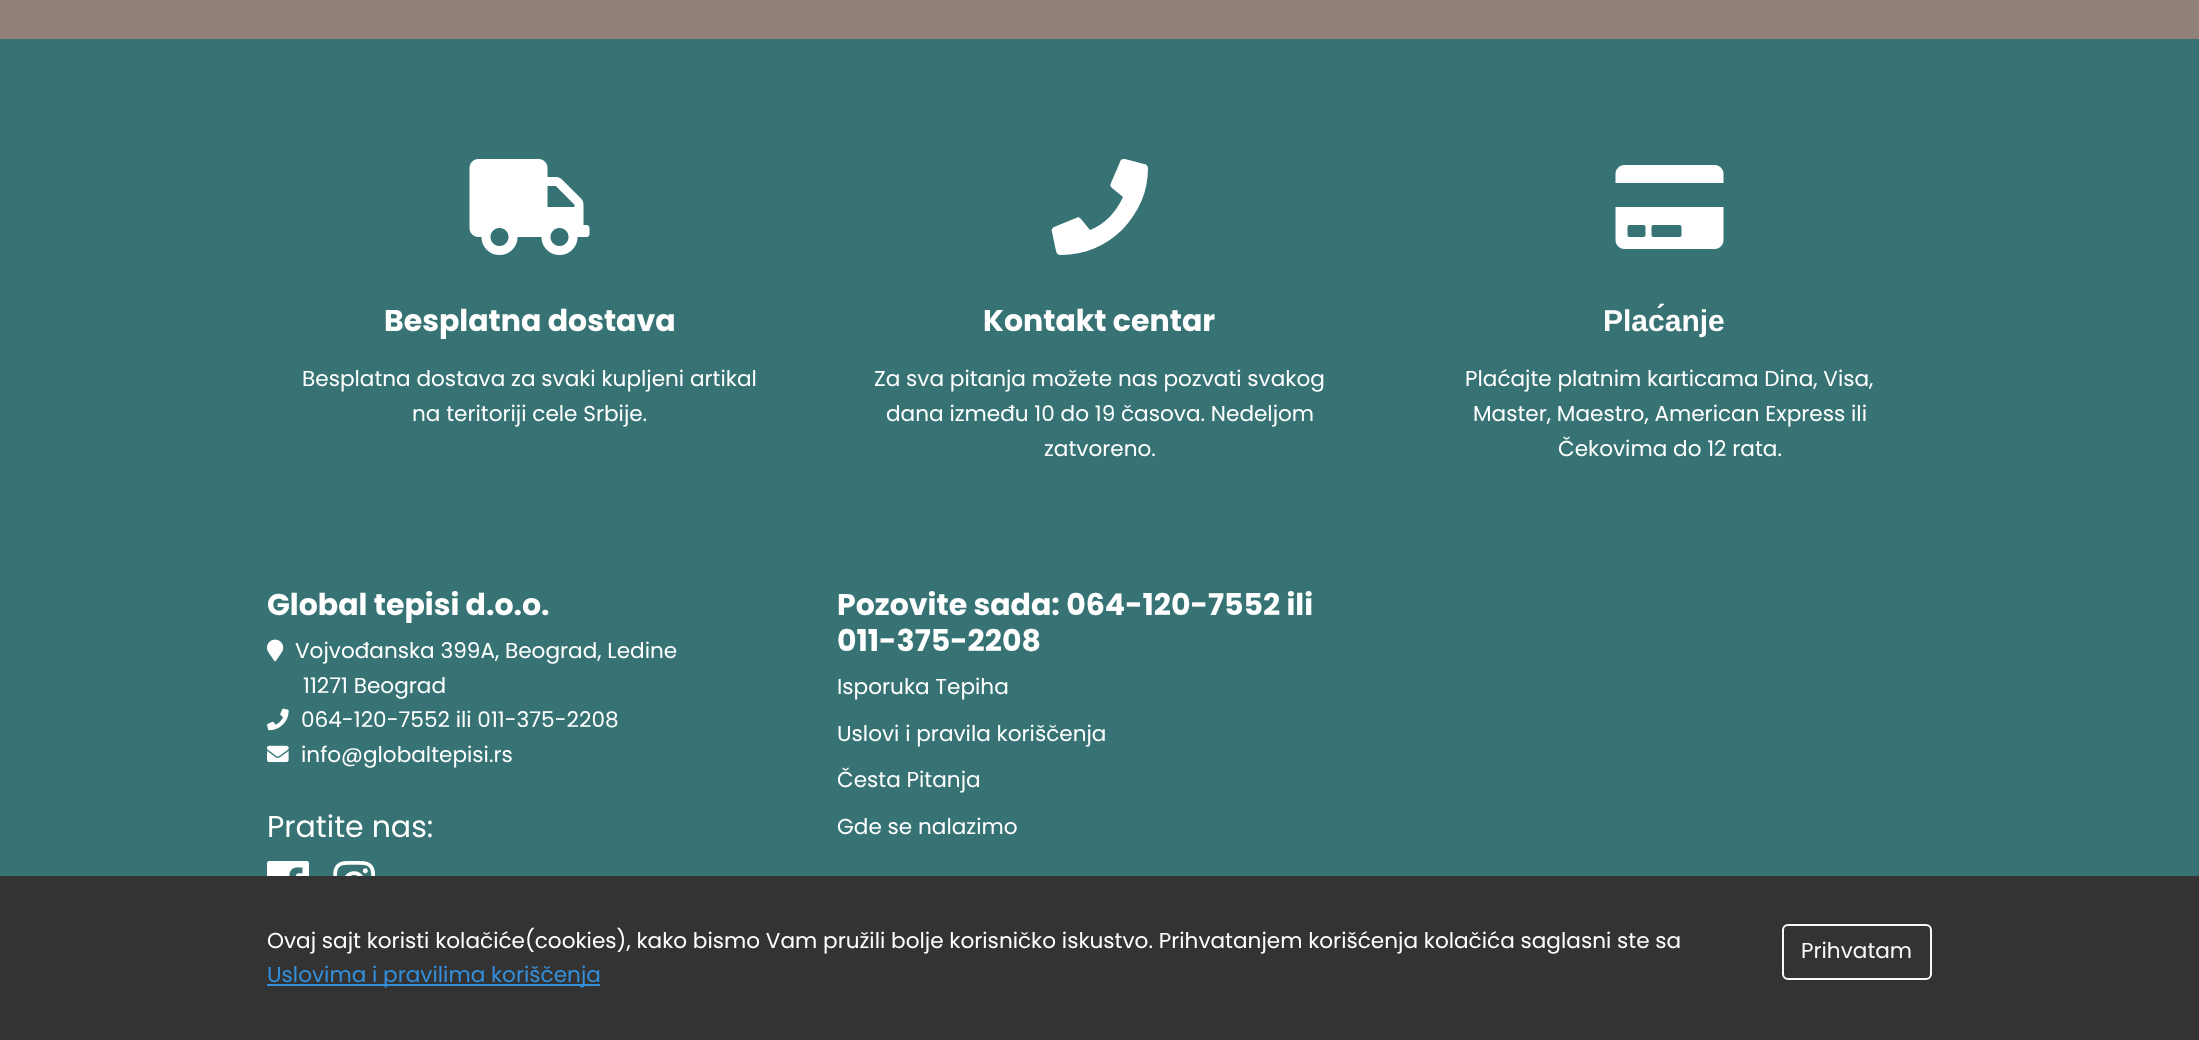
<!DOCTYPE html>
<meta charset="utf-8">
<style>body { margin: 0 } canvas { display: block }</style>
<canvas id="canvas" width="2199" height="1040"></canvas>
<img id="img1" src="img_01.png" hidden>
<img id="img2" src="img_02.png" hidden>
<img id="img3" src="img_03.png" hidden>
<img id="img4" src="img_04.png" hidden>
<img id="img5" src="img_05.png" hidden>
<img id="img6" src="img_06.png" hidden>
<img id="img7" src="img_07.png" hidden>
<script>
window.onload = function () {
	const canvas = document.getElementById("canvas");
	const ctx = canvas.getContext("2d");
	ctx.miterLimit = 4;
	ctx.fontKerning = "normal";
	function txt(s, x, y) {
		ctx.fillText(s, x, y);
	}
	function fill(x, y, w, h) {
		ctx.fillRect(x, y, w, h);
	}
	function img(id, x, y, w, h) {
		ctx.drawImage(document.getElementById(id), x, y, w, h);
	}

	ctx.fillStyle = "#92817A";
	fill(0, 0, 2199, 1040);
	ctx.fillStyle = "#377374";
	fill(0, 39, 2199, 837);
	img("img1", 469, 159, 121, 96);
	ctx.fillStyle = "#FFFFFF";
	ctx.beginPath();
	ctx.moveTo(1144, 164);
	ctx.bezierCurveTo(1146, 164, 1148, 166, 1148, 168);
	ctx.bezierCurveTo(1148, 192, 1139, 212, 1122, 230);
	ctx.bezierCurveTo(1105, 246, 1085, 255, 1061, 255);
	ctx.bezierCurveTo(1058, 255, 1057, 254, 1056, 251);
	ctx.lineTo(1052, 232);
	ctx.bezierCurveTo(1051, 230, 1052, 228, 1054, 227);
	ctx.lineTo(1076, 218);
	ctx.bezierCurveTo(1078, 217, 1079, 217, 1081, 219);
	ctx.lineTo(1090, 230);
	ctx.bezierCurveTo(1105, 224, 1116, 212, 1123, 197);
	ctx.lineTo(1112, 188);
	ctx.bezierCurveTo(1110, 186, 1110, 185, 1111, 183);
	ctx.lineTo(1120, 162);
	ctx.bezierCurveTo(1121, 159, 1122, 159, 1125, 159);
	ctx.closePath();
	ctx.fill();
	img("img2", 1615, 165, 109, 84);
	img("img3", 267, 639, 17, 23);
	img("img4", 267, 708, 22, 23);
	img("img5", 267, 745, 22, 17);
	img("img6", 267, 861, 42, 15);
	img("img7", 333, 861, 43, 15);
	ctx.fillStyle = "#333333";
	fill(0, 876, 2199, 164);
	ctx.fillStyle = "#3490DC";
	fill(267, 984, 333, 2);
	ctx.beginPath();
	ctx.roundRect(1783, 925, 148, 54, 5);
	ctx.strokeStyle = "#F8F9FA";
	ctx.lineWidth = 2;
	ctx.stroke();
	ctx.font = "bold 30px Poppins";
	ctx.fillStyle = "#FFFFFF";
	txt("Besplatna dostava", 384, 331);
	ctx.font = "21.6px Poppins";
	txt("Besplatna dostava za svaki kupljeni artikal", 302, 386);
	txt("na teritoriji cele Srbije.", 412, 421);
	ctx.font = "bold 30px Poppins";
	txt("Kontakt centar", 983, 331);
	ctx.font = "21.6px Poppins";
	txt("Za sva pitanja možete nas pozvati svakog", 874, 386);
	txt("dana između 10 do 19 časova. Nedeljom", 886, 421);
	txt("zatvoreno.", 1044, 456);
	ctx.font = "bold 30px Liberation Sans";
	txt("Plaćanje", 1603, 331);
	ctx.font = "21.6px Poppins";
	txt("Plaćajte platnim karticama Dina, Visa,", 1465, 386);
	txt("Master, Maestro, American Express ili", 1473, 421);
	txt("Čekovima do 12 rata.", 1558, 456);
	ctx.font = "bold 30px Poppins";
	txt("Global tepisi d.o.o.", 267, 615);
	ctx.font = "21.6px Poppins";
	txt("Vojvođanska 399A, Beograd, Ledine", 295, 658);
	txt("11271 Beograd", 303, 693);
	txt("064-120-7552 ili 011-375-2208", 301, 727);
	txt("info@globaltepisi.rs", 301, 762);
	ctx.font = "30px Poppins";
	txt("Pratite nas:", 267, 837);
	ctx.font = "bold 30px Poppins";
	txt("Pozovite sada: 064-120-7552 ili", 837, 615);
	txt("011-375-2208", 837, 651);
	ctx.font = "21.6px Poppins";
	txt("Isporuka Tepiha", 837, 694);
	txt("Uslovi i pravila koriščenja", 837, 741);
	txt("Česta Pitanja", 837, 787);
	txt("Gde se nalazimo", 837, 834);
	txt("Ovaj sajt koristi kolačiće(cookies), kako bismo Vam pružili bolje korisničko iskustvo. Prihvatanjem korišćenja kolačića saglasni ste sa", 267, 948);
	ctx.fillStyle = "#3490DC";
	txt("Uslovima i pravilima koriščenja", 267, 982);
	ctx.fillStyle = "#F8F9FA";
	txt("Prihvatam", 1801, 958);
};
</script>
